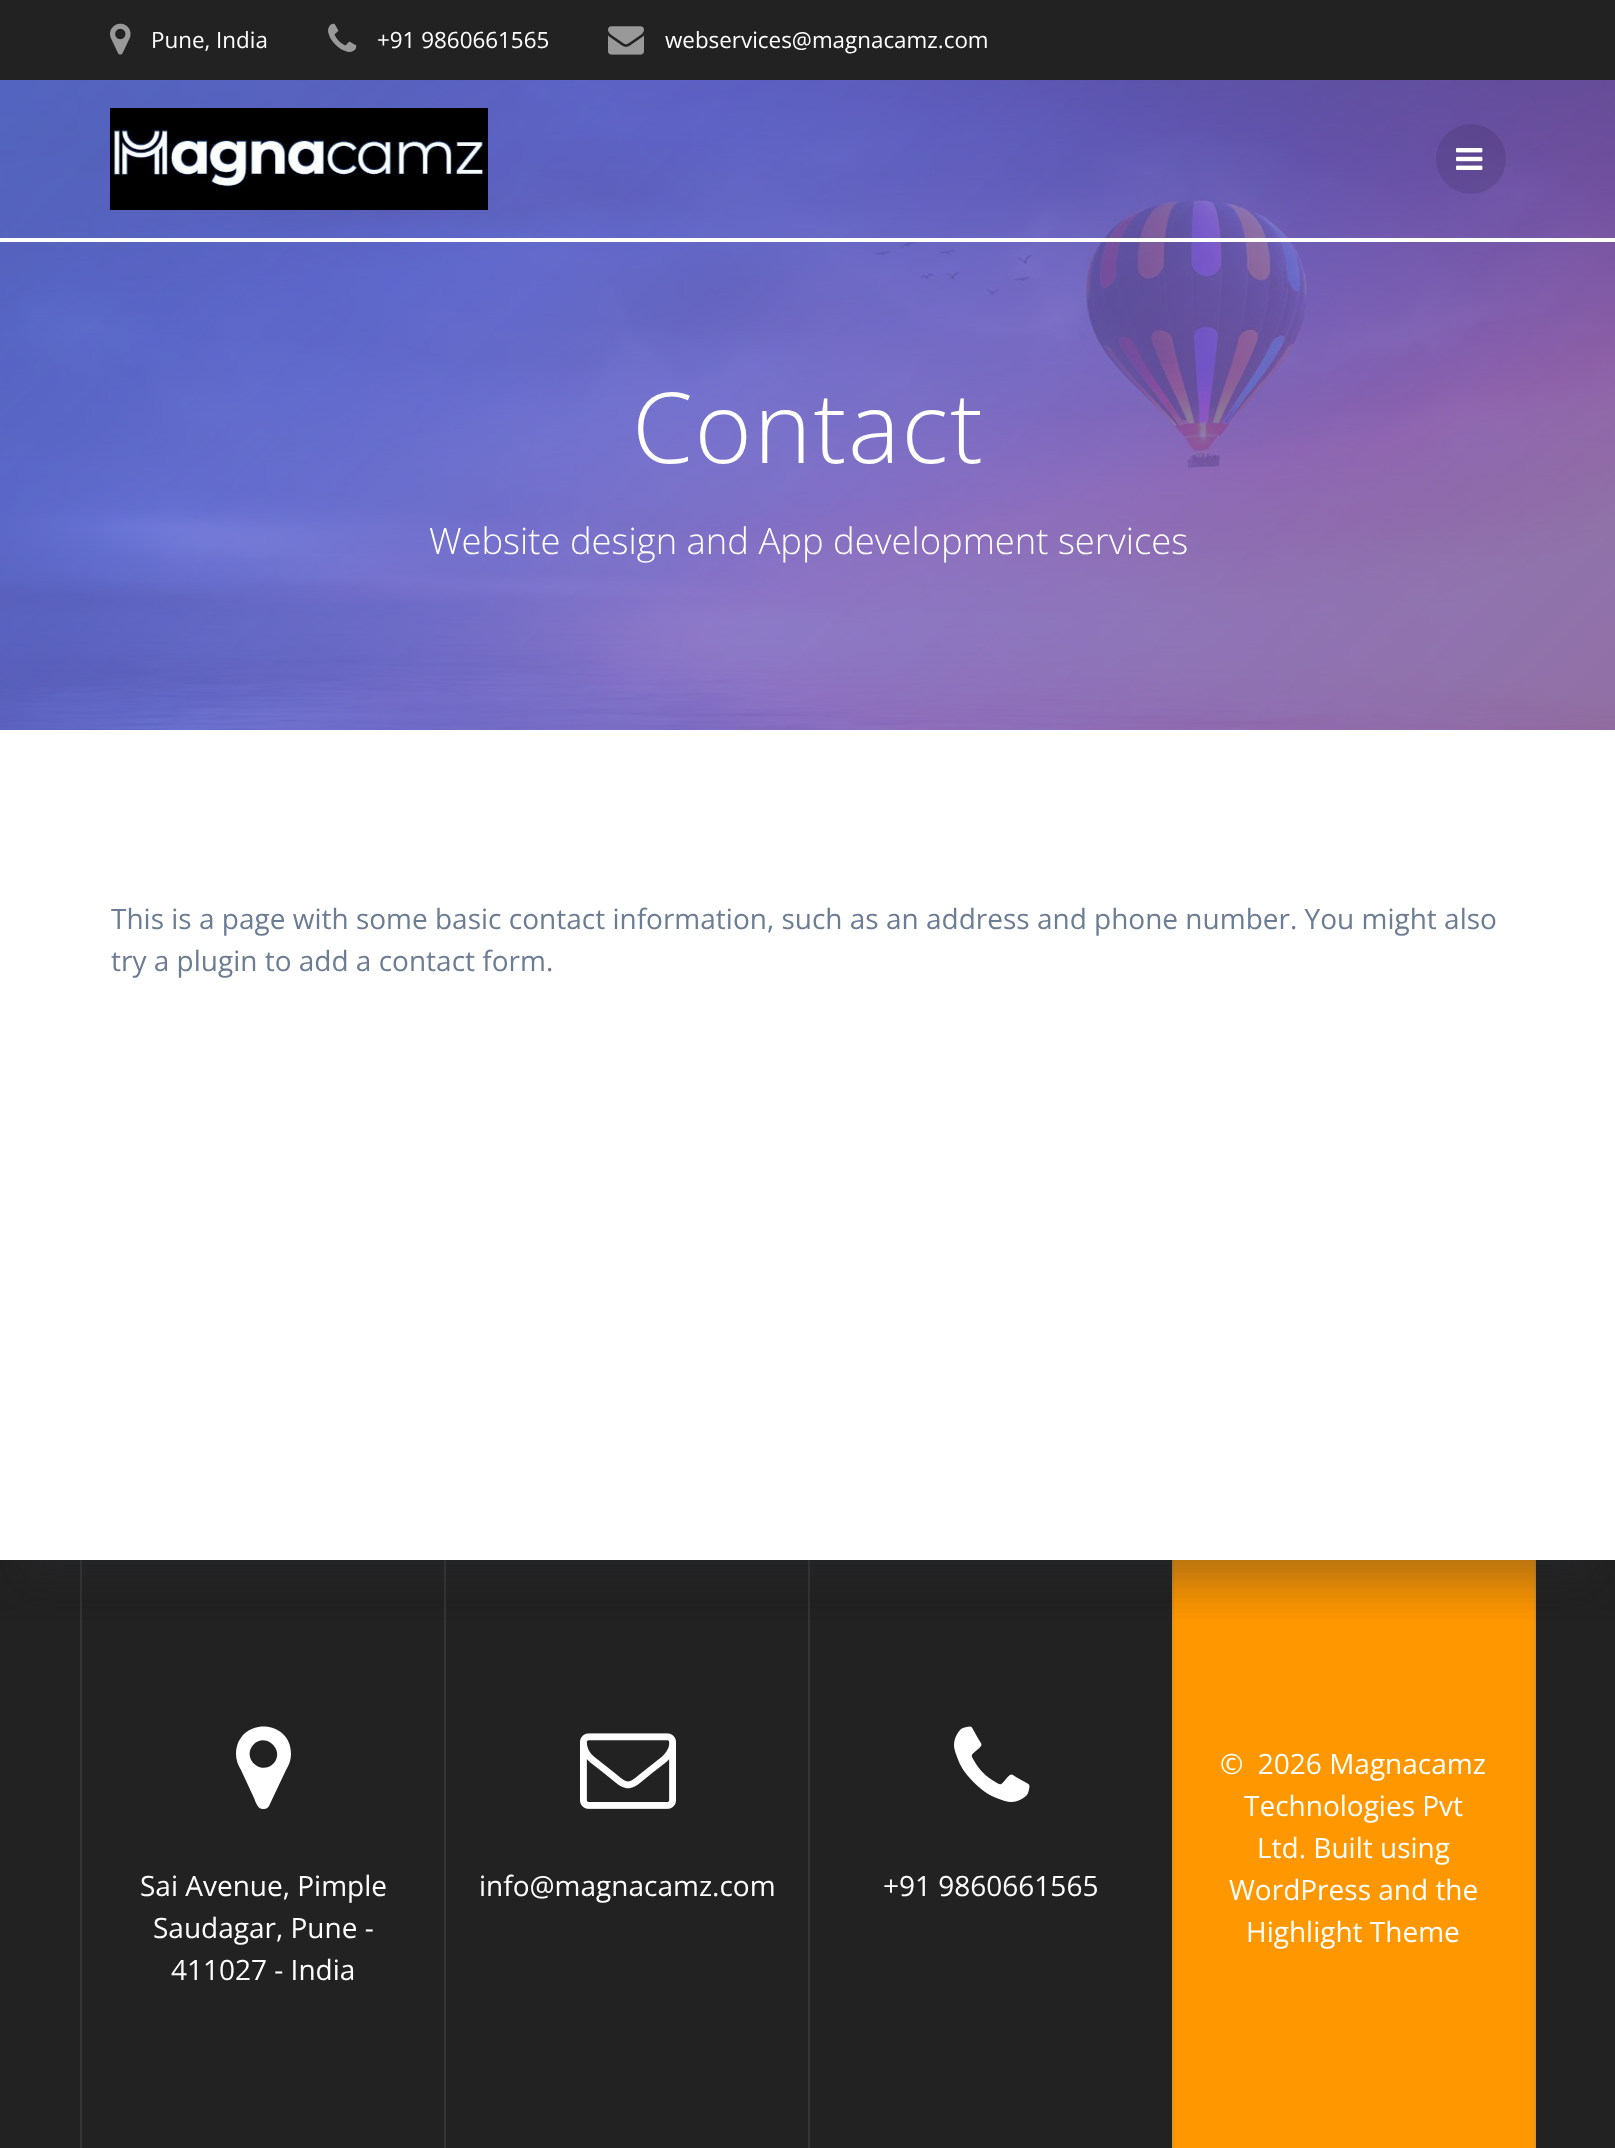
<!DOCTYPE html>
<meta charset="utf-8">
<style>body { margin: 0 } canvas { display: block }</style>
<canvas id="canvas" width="1615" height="2148"></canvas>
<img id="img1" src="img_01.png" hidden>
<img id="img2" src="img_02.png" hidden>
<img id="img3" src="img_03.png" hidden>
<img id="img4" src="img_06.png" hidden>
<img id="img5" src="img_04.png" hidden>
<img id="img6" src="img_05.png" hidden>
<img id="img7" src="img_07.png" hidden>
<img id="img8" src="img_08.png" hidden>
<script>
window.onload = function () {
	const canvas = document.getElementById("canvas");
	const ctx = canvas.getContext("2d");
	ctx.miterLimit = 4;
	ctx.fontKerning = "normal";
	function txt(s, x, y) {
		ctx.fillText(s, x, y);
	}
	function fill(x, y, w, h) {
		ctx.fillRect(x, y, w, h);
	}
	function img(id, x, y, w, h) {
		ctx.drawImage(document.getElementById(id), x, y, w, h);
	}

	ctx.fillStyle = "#FFFFFF";
	fill(0, 0, 1615, 2148);
	ctx.fillStyle = "#222222";
	fill(0, 0, 1615, 80);
	img("img1", 110, 23, 21, 32);
	img("img2", 328, 23, 29, 29);
	img("img3", 608, 26, 36, 29);
	img("img4", 0, 80, 1615, 650);
	ctx.fillStyle = "#FFFFFF";
	fill(0, 238, 1615, 4);
	img("img5", 110, 108, 378, 102);
	ctx.fillStyle = "rgba(0, 0, 0, 0.1)";
	ctx.beginPath();
	ctx.arc(1471, 159, 35, 0, Math.PI * 2);
	ctx.fill();
	img("img6", 1456, 148, 27, 22);
	ctx.fillStyle = "#222222";
	fill(0, 1560, 1615, 588);
	ctx.fillStyle = "#353535";
	fill(80, 1560, 2, 588);
	fill(444, 1560, 2, 588);
	fill(808, 1560, 2, 588);
	ctx.fillStyle = "#FF9800";
	fill(1174, 1560, 360, 588);
	ctx.fillStyle = "#E6931A";
	fill(1534, 1560, 2, 588);
	fill(1172, 1560, 2, 588);
	ctx.save();
	ctx.beginPath();
	ctx.rect(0, 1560, 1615, 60);
	ctx.clip();
	ctx.fillStyle = "rgba(0, 0, 0, 0.08)";
	ctx.filter = "blur(30px)";
	ctx.beginPath();
	ctx.rect(0, 770, 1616, 830);
	ctx.fill();
	ctx.filter = "none";
	ctx.restore();
	ctx.save();
	ctx.beginPath();
	ctx.rect(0, 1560, 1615, 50);
	ctx.clip();
	ctx.fillStyle = "rgba(49, 52, 57, 0.3)";
	ctx.filter = "blur(20px)";
	ctx.beginPath();
	ctx.rect(20, 790, 1576, 790);
	ctx.fill();
	ctx.filter = "none";
	ctx.restore();
	ctx.fillStyle = "#FFFFFF";
	ctx.beginPath();
	ctx.moveTo(273, 1764);
	ctx.bezierCurveTo(286, 1751, 266, 1732, 254, 1744);
	ctx.bezierCurveTo(241, 1757, 260, 1776, 273, 1764);
	ctx.closePath();
	ctx.moveTo(291, 1754);
	ctx.bezierCurveTo(291, 1760, 289, 1765, 286, 1770);
	ctx.lineTo(269, 1806);
	ctx.bezierCurveTo(268, 1808, 266, 1809, 264, 1809);
	ctx.bezierCurveTo(258, 1810, 256, 1803, 254, 1798);
	ctx.lineTo(241, 1770);
	ctx.bezierCurveTo(238, 1765, 236, 1760, 236, 1754);
	ctx.bezierCurveTo(237, 1717, 291, 1718, 291, 1754);
	ctx.closePath();
	ctx.fill();
	img("img7", 580, 1733, 96, 76);
	img("img8", 954, 1726, 76, 76);
	ctx.font = "22.4px Open Sans";
	txt("Pune, India", 151, 48);
	txt("+91 9860661565", 377, 48);
	txt("webservices@magnacamz.com", 665, 48);
	ctx.letterSpacing = "1.75px";
	ctx.font = "300 98px Open Sans";
	txt("Contact", 632, 463);
	ctx.letterSpacing = "0px";
	ctx.font = "300 36.4px Open Sans";
	txt("Website design and App development services", 429, 554);
	ctx.font = "28px Open Sans";
	ctx.fillStyle = "#6B7C93";
	txt("This is a page with some basic contact information, such as an address and phone number. You might also", 111, 929);
	txt("try a plugin to add a contact form.", 111, 971);
	ctx.fillStyle = "#FFFFFF";
	txt("Sai Avenue, Pimple", 140, 1896);
	txt("Saudagar, Pune -", 153, 1938);
	txt("411027 - India", 171, 1980);
	txt("info@magnacamz.com", 479, 1896);
	txt("+91 9860661565", 883, 1896);
	txt("©  2026 Magnacamz", 1220, 1774);
	txt("Technologies Pvt", 1244, 1816);
	txt("Ltd. Built using", 1257, 1858);
	txt("WordPress and the", 1229, 1900);
	txt("Highlight Theme", 1246, 1942);
};
</script>
